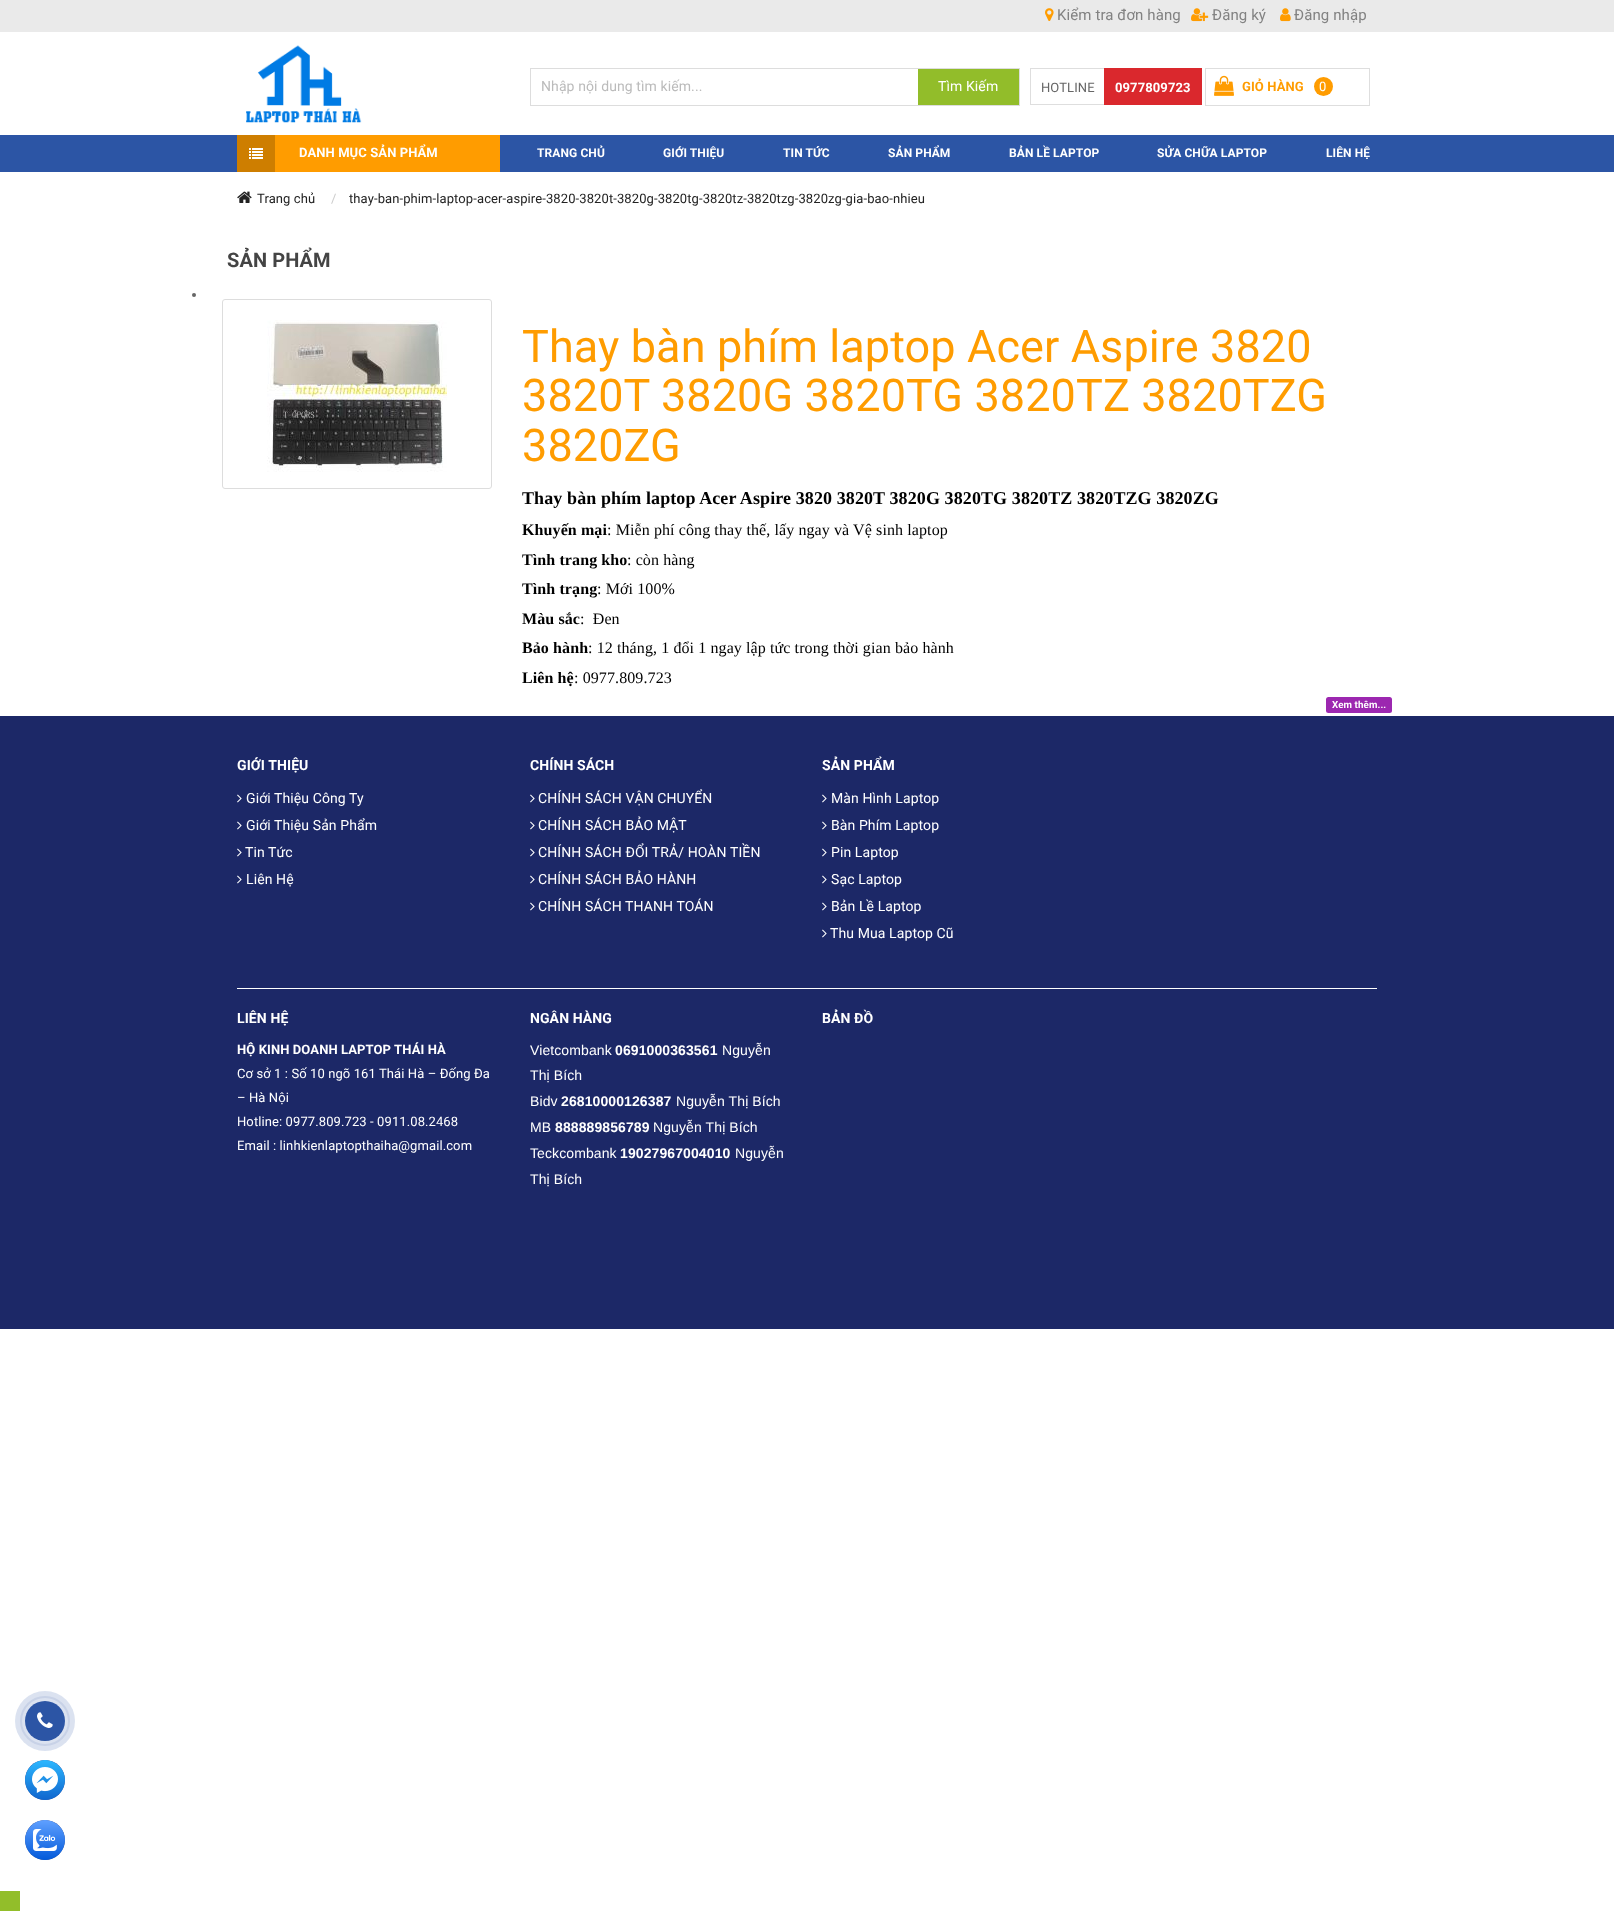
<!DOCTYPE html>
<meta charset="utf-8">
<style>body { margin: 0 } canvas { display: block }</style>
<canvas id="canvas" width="1614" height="1911"></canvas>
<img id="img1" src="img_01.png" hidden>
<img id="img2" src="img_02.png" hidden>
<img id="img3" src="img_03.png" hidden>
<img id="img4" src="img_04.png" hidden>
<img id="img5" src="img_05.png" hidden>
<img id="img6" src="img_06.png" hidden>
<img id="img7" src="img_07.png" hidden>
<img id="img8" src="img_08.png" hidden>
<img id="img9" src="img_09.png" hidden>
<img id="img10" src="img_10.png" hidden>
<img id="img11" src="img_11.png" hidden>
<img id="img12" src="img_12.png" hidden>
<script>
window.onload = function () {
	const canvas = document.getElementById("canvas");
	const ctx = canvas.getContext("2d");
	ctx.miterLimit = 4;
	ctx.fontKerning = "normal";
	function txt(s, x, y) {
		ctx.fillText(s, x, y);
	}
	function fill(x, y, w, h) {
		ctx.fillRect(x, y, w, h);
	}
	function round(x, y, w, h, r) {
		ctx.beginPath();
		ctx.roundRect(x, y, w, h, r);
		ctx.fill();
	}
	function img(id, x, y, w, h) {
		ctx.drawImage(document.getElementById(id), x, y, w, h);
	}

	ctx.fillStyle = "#FFFFFF";
	fill(0, 0, 1614, 1911);
	ctx.fillStyle = "#EAEAEA";
	fill(0, 0, 1614, 32);
	img("img1", 1045, 8, 9, 13);
	img("img2", 1191, 8, 18, 14);
	img("img3", 1280, 8, 11, 14);
	img("img4", 246, 45, 116, 78);
	ctx.strokeStyle = "#DDDDDD";
	ctx.strokeRect(530.5, 68.5, 489, 37);
	ctx.fillStyle = "#92BD2A";
	fill(918, 69, 101, 36);
	ctx.fillStyle = "#DEDEDE";
	fill(1030, 68, 74, 1);
	fill(1030, 104, 74, 1);
	fill(1030, 68, 1, 37);
	ctx.fillStyle = "#DA282D";
	fill(1104, 68, 98, 37);
	ctx.strokeStyle = "#DEDEDE";
	ctx.strokeRect(1205.5, 68.5, 164, 37);
	img("img5", 1214, 75, 20, 21);
	ctx.fillStyle = "#FF9C00";
	ctx.beginPath();
	ctx.arc(1323.5, 86.5, 9.5, 0, Math.PI * 2);
	ctx.fill();
	ctx.fillStyle = "#2C55A5";
	fill(0, 135, 1614, 37);
	ctx.fillStyle = "#FF9C00";
	fill(275, 135, 225, 37);
	ctx.fillStyle = "#CE7E00";
	fill(237, 135, 38, 37);
	img("img6", 249, 148, 14, 11);
	img("img7", 237, 191, 15, 12);
	ctx.fillStyle = "#666666";
	ctx.beginPath();
	ctx.arc(194, 295, 2, 0, Math.PI * 2);
	ctx.fill();
	ctx.beginPath();
	ctx.roundRect(222.5, 299.5, 269, 189, 2.5);
	ctx.strokeStyle = "#DDDDDD";
	ctx.stroke();
	img("img8", 267, 320, 180, 152);
	ctx.fillStyle = "#9C27B0";
	round(1326, 697, 66, 16, 2.5);
	ctx.fillStyle = "#1C2867";
	fill(0, 716, 1614, 613);
	img("img9", 237, 794, 5, 9);
	img("img9", 237, 821, 5, 9);
	img("img9", 237, 848, 5, 9);
	img("img9", 237, 875, 5, 9);
	img("img9", 530, 794, 5, 9);
	img("img9", 530, 821, 5, 9);
	img("img9", 530, 848, 5, 9);
	img("img9", 530, 875, 5, 9);
	img("img9", 530, 902, 5, 9);
	img("img9", 822, 794, 5, 9);
	img("img9", 822, 821, 5, 9);
	img("img9", 822, 848, 5, 9);
	img("img9", 822, 875, 5, 9);
	img("img9", 822, 902, 5, 9);
	img("img9", 822, 929, 5, 9);
	ctx.fillStyle = "#FFFFFF";
	fill(237, 988, 1140, 1);
	ctx.beginPath();
	ctx.arc(45, 1721, 24, 0, Math.PI * 2);
	ctx.strokeStyle = "#E8ECF5";
	ctx.lineWidth = 2;
	ctx.stroke();
	ctx.fillStyle = "rgba(44, 85, 165, 0.17)";
	ctx.beginPath();
	ctx.arc(45, 1721, 30, 0, Math.PI * 2);
	ctx.fill();
	ctx.fillStyle = "#2C55A5";
	ctx.beginPath();
	ctx.arc(45, 1721, 20, 0, Math.PI * 2);
	ctx.fill();
	img("img10", 37, 1712, 16, 16);
	ctx.beginPath();
	ctx.arc(45, 1780, 20, 0, Math.PI * 2);
	ctx.fill();
	img("img11", 25, 1760, 40, 40);
	ctx.beginPath();
	ctx.arc(45, 1840, 20, 0, Math.PI * 2);
	ctx.fill();
	img("img12", 25, 1820, 40, 40);
	ctx.fillStyle = "#92BE2A";
	fill(0, 1891, 20, 20);
	ctx.letterSpacing = "0.1px";
	ctx.font = "15px Roboto";
	ctx.fillStyle = "#828282";
	txt("Kiểm tra đơn hàng", 1057, 20);
	txt("Đăng ký", 1212, 20);
	txt("Đăng nhập", 1294, 20);
	ctx.font = "14px Roboto";
	ctx.fillStyle = "#BBBBBB";
	txt("Nhập nội dung tìm kiếm...", 541, 91);
	ctx.fillStyle = "#FFFFFF";
	txt("Tìm Kiếm", 938, 91);
	ctx.font = "13px Roboto";
	ctx.fillStyle = "#666666";
	txt("HOTLINE", 1041, 92);
	ctx.font = "bold 13px Roboto";
	ctx.fillStyle = "#FFFFFF";
	txt("0977809723", 1115, 92);
	ctx.fillStyle = "#FF9C00";
	txt("GIỎ HÀNG", 1242, 91);
	ctx.font = "13px Roboto";
	ctx.fillStyle = "#FFFFFF";
	txt("0", 1319, 91);
	ctx.font = "bold 13px Roboto";
	txt("DANH MỤC SẢN PHẨM", 299, 157);
	ctx.font = "bold 12px Roboto";
	txt("TRANG CHỦ", 537, 157);
	txt("GIỚI THIỆU", 663, 157);
	txt("TIN TỨC", 783, 157);
	txt("SẢN PHẨM", 888, 157);
	txt("BẢN LỀ LAPTOP", 1009, 157);
	txt("SỬA CHỮA LAPTOP", 1157, 157);
	txt("LIÊN HỆ", 1326, 157);
	ctx.font = "13px Roboto";
	ctx.fillStyle = "#222222";
	txt("Trang chủ", 257, 203);
	ctx.fillStyle = "#CCCCCC";
	txt("/", 331, 203);
	ctx.fillStyle = "#222222";
	txt("thay-ban-phim-laptop-acer-aspire-3820-3820t-3820g-3820tg-3820tz-3820tzg-3820zg-gia-bao-nhieu", 349, 203);
	ctx.font = "bold 20px Roboto";
	ctx.fillStyle = "#444444";
	txt("SẢN PHẨM", 227, 267);
	ctx.font = "45px Roboto";
	ctx.fillStyle = "#FF9C00";
	txt("Thay bàn phím laptop Acer Aspire 3820", 522, 362);
	txt("3820T 3820G 3820TG 3820TZ 3820TZG", 522, 411);
	txt("3820ZG", 522, 461);
	ctx.font = "bold 18px Liberation Serif";
	ctx.fillStyle = "#000000";
	txt("Thay bàn phím laptop Acer Aspire 3820 3820T 3820G 3820TG 3820TZ 3820TZG 3820ZG", 522, 504);
	ctx.font = "bold 16px Liberation Serif";
	txt("Khuyến mại", 522, 535);
	ctx.font = "16px Liberation Serif";
	txt(": Miễn phí công thay thế, lấy ngay và Vệ sinh laptop", 607, 535);
	ctx.font = "bold 16px Liberation Serif";
	txt("Tình trang kho", 522, 565);
	ctx.font = "16px Liberation Serif";
	txt(": còn hàng", 627, 565);
	ctx.font = "bold 16px Liberation Serif";
	txt("Tình trạng", 522, 594);
	ctx.font = "16px Liberation Serif";
	txt(": Mới 100%", 597, 594);
	ctx.font = "bold 16px Liberation Serif";
	txt("Màu sắc", 522, 624);
	ctx.font = "16px Liberation Serif";
	txt(":  Đen", 580, 624);
	ctx.font = "bold 16px Liberation Serif";
	txt("Bảo hành", 522, 653);
	ctx.font = "16px Liberation Serif";
	txt(": 12 tháng, 1 đổi 1 ngay lập tức trong thời gian bảo hành", 588, 653);
	ctx.font = "bold 16px Liberation Serif";
	txt("Liên hệ", 522, 683);
	ctx.font = "16px Liberation Serif";
	txt(": 0977.809.723", 574, 683);
	ctx.font = "bold 9.75px Roboto";
	ctx.fillStyle = "#FFFFFF";
	txt("Xem thêm...", 1332, 708);
	ctx.font = "bold 14px Roboto";
	txt("GIỚI THIỆU", 237, 770);
	ctx.font = "14px Roboto";
	txt("Giới Thiệu Công Ty", 246, 803);
	txt("Giới Thiệu Sản Phẩm", 246, 830);
	txt("Tin Tức", 245, 857);
	txt("Liên Hệ", 246, 884);
	ctx.font = "bold 14px Roboto";
	txt("CHÍNH SÁCH", 530, 770);
	ctx.font = "14px Roboto";
	txt("CHÍNH SÁCH VẬN CHUYỂN", 538, 803);
	txt("CHÍNH SÁCH BẢO MẬT", 538, 830);
	txt("CHÍNH SÁCH ĐỔI TRẢ/ HOÀN TIỀN", 538, 857);
	txt("CHÍNH SÁCH BẢO HÀNH", 538, 884);
	txt("CHÍNH SÁCH THANH TOÁN", 538, 911);
	ctx.font = "bold 14px Roboto";
	txt("SẢN PHẨM", 822, 770);
	ctx.font = "14px Roboto";
	txt("Màn Hình Laptop", 831, 803);
	txt("Bàn Phím Laptop", 831, 830);
	txt("Pin Laptop", 831, 857);
	txt("Sạc Laptop", 831, 884);
	txt("Bản Lề Laptop", 831, 911);
	txt("Thu Mua Laptop Cũ", 830, 938);
	ctx.font = "bold 14px Roboto";
	txt("LIÊN HỆ", 237, 1023);
	ctx.font = "bold 13px Roboto";
	txt("HỘ KINH DOANH LAPTOP THÁI HÀ", 237, 1054);
	ctx.font = "13px Roboto";
	txt("Cơ sở 1 : Số 10 ngõ 161 Thái Hà – Đống Đa", 237, 1078);
	txt("– Hà Nội", 237, 1102);
	txt("Hotline: 0977.809.723 - 0911.08.2468", 237, 1126);
	txt("Email : linhkienlaptopthaiha@gmail.com", 237, 1150);
	ctx.font = "bold 14px Roboto";
	txt("NGÂN HÀNG", 530, 1023);
	ctx.font = "14px Liberation Sans";
	txt("Vietcombank", 530, 1055);
	ctx.font = "bold 14px Liberation Sans";
	txt("0691000363561", 615, 1055);
	ctx.font = "14px Liberation Sans";
	txt("Nguyễn", 722, 1055);
	txt("Thị Bích", 530, 1080);
	txt("Bidv", 530, 1106);
	ctx.font = "bold 14px Liberation Sans";
	txt("26810000126387", 561, 1106);
	ctx.font = "14px Liberation Sans";
	txt("Nguyễn Thị Bích", 676, 1106);
	txt("MB", 530, 1132);
	ctx.font = "bold 14px Liberation Sans";
	txt("888889856789", 555, 1132);
	ctx.font = "14px Liberation Sans";
	txt("Nguyễn Thị Bích", 653, 1132);
	txt("Teckcombank", 530, 1158);
	ctx.font = "bold 14px Liberation Sans";
	txt("19027967004010", 620, 1158);
	ctx.font = "14px Liberation Sans";
	txt("Nguyễn", 735, 1158);
	txt("Thị Bích", 530, 1184);
	ctx.font = "bold 14px Roboto";
	txt("BẢN ĐỒ", 822, 1023);
};
</script>
